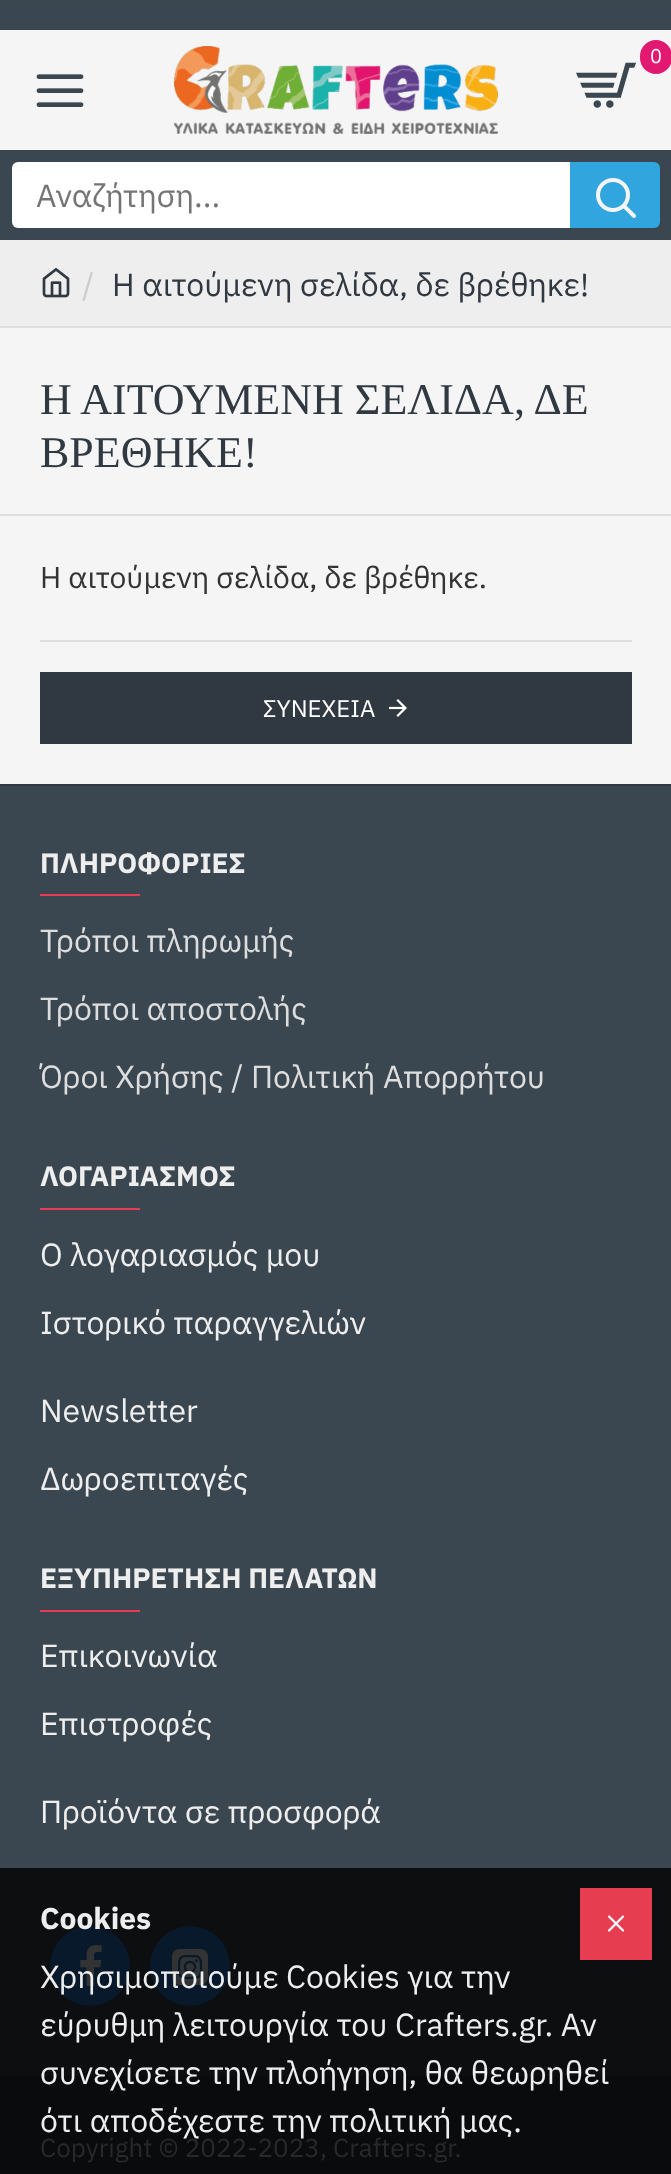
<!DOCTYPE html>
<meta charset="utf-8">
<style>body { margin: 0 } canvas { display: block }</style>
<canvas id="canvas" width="671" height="2174"></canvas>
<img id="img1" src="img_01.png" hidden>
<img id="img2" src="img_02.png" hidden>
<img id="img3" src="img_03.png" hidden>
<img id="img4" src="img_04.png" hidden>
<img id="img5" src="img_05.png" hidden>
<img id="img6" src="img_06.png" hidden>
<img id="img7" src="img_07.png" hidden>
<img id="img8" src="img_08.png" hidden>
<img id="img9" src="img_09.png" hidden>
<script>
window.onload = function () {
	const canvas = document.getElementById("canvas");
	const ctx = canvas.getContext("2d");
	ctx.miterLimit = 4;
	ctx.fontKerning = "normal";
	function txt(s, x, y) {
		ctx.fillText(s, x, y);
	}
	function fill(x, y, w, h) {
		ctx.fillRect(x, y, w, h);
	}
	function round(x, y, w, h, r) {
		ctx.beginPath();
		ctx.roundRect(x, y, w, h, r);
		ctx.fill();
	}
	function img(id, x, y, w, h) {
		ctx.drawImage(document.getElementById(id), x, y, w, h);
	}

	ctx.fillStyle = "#F5F5F5";
	fill(0, 0, 671, 2174);
	ctx.fillStyle = "#3A4750";
	fill(0, 0, 671, 30);
	img("img1", 174, 46, 324, 88);
	ctx.fillStyle = "#E21970";
	round(640, 40, 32, 34, 16);
	img("img2", 576, 62, 60, 46);
	img("img3", 36, 74, 48, 33);
	ctx.fillStyle = "#3A4750";
	fill(0, 150, 671, 90);
	ctx.fillStyle = "#FFFFFF";
	ctx.beginPath();
	ctx.roundRect(12, 162, 558, 66, [6, 0, 0, 6]);
	ctx.fill();
	ctx.fillStyle = "#31A6DE";
	ctx.beginPath();
	ctx.roundRect(570, 162, 90, 66, [0, 6, 6, 0]);
	ctx.fill();
	img("img4", 596, 178, 40, 40);
	ctx.fillStyle = "#EEEEEE";
	fill(0, 240, 671, 86);
	ctx.fillStyle = "#DDDDDD";
	fill(0, 326, 671, 2);
	img("img5", 42, 268, 28, 30);
	fill(0, 514, 671, 2);
	fill(40, 640, 592, 2);
	ctx.fillStyle = "#303841";
	fill(40, 672, 592, 72);
	img("img6", 389, 699, 18, 18);
	ctx.fillStyle = "#3A4750";
	fill(0, 786, 671, 1082);
	ctx.fillStyle = "#0C0E10";
	fill(0, 1868, 671, 208);
	ctx.fillStyle = "#303841";
	fill(0, 784, 671, 2);
	ctx.fillStyle = "#E73D50";
	fill(40, 894, 100, 2);
	fill(40, 1208, 100, 2);
	fill(40, 1610, 100, 2);
	ctx.fillStyle = "#08192B";
	ctx.beginPath();
	ctx.arc(90, 1966, 40, 0, Math.PI * 2);
	ctx.fill();
	img("img7", 80, 1945, 22, 41);
	ctx.beginPath();
	ctx.arc(190, 1966, 40, 0, Math.PI * 2);
	ctx.fill();
	img("img8", 172, 1949, 36, 36);
	ctx.fillStyle = "#0A0B0D";
	fill(0, 2076, 671, 98);
	ctx.fillStyle = "#E73D50";
	fill(580, 1888, 72, 72);
	img("img9", 608, 1915, 17, 17);
	ctx.font = "20px IBM Plex Sans";
	ctx.fillStyle = "#FFFFFF";
	txt("0", 650, 63);
	ctx.font = "32px IBM Plex Sans";
	ctx.fillStyle = "#757575";
	txt("Αναζήτηση...", 36, 207);
	ctx.fillStyle = "#CCCCCC";
	txt("/", 82, 296);
	ctx.fillStyle = "#303841";
	txt("Η αιτούμενη σελίδα, δε βρέθηκε!", 112, 296);
	ctx.font = "44px Liberation Serif";
	txt("Η ΑΙΤΟΥΜΕΝΗ ΣΕΛΙΔΑ, ΔΕ", 40, 414);
	txt("ΒΡΕΘΗΚΕ!", 40, 467);
	ctx.font = "30px IBM Plex Sans";
	ctx.fillStyle = "#333333";
	txt("Η αιτούμενη σελίδα, δε βρέθηκε.", 40, 588);
	ctx.font = "24px IBM Plex Sans";
	ctx.fillStyle = "#FFFFFF";
	txt("ΣΥΝΕΧΕΙΑ", 263, 717);
	ctx.font = "bold 28px IBM Plex Sans";
	ctx.fillStyle = "#EEEEEE";
	txt("ΠΛΗΡΟΦΟΡΙΕΣ", 40, 873);
	ctx.font = "32px IBM Plex Sans";
	ctx.fillStyle = "#DDDDDD";
	txt("Τρόποι πληρωμής", 40, 952);
	txt("Τρόποι αποστολής", 40, 1020);
	txt("Όροι Χρήσης / Πολιτική Απορρήτου", 40, 1088);
	ctx.font = "bold 28px IBM Plex Sans";
	ctx.fillStyle = "#EEEEEE";
	txt("ΛΟΓΑΡΙΑΣΜΟΣ", 40, 1186);
	ctx.font = "32px IBM Plex Sans";
	txt("Ο λογαριασμός μου", 40, 1266);
	txt("Ιστορικό παραγγελιών", 40, 1334);
	txt("Newsletter", 40, 1422);
	txt("Δωροεπιταγές", 40, 1490);
	ctx.font = "bold 28px IBM Plex Sans";
	txt("ΕΞΥΠΗΡΕΤΗΣΗ ΠΕΛΑΤΩΝ", 40, 1588);
	ctx.font = "32px IBM Plex Sans";
	txt("Επικοινωνία", 40, 1667);
	txt("Επιστροφές", 40, 1735);
	txt("Προϊόντα σε προσφορά", 40, 1823);
	ctx.font = "26px IBM Plex Sans";
	ctx.fillStyle = "#292929";
	txt("Copyright © 2022-2023, Crafters.gr.", 40, 2157);
	ctx.font = "bold 30px IBM Plex Sans";
	ctx.fillStyle = "#EEEEEE";
	txt("Cookies", 40, 1929);
	ctx.font = "32px IBM Plex Sans";
	txt("Χρησιμοποιούμε Cookies για την", 40, 1988);
	txt("εύρυθμη λειτουργία του Crafters.gr. Αν", 40, 2036);
	txt("συνεχίσετε την πλοήγηση, θα θεωρηθεί", 40, 2084);
	txt("ότι αποδέχεστε την πολιτική μας.", 40, 2132);
};
</script>
